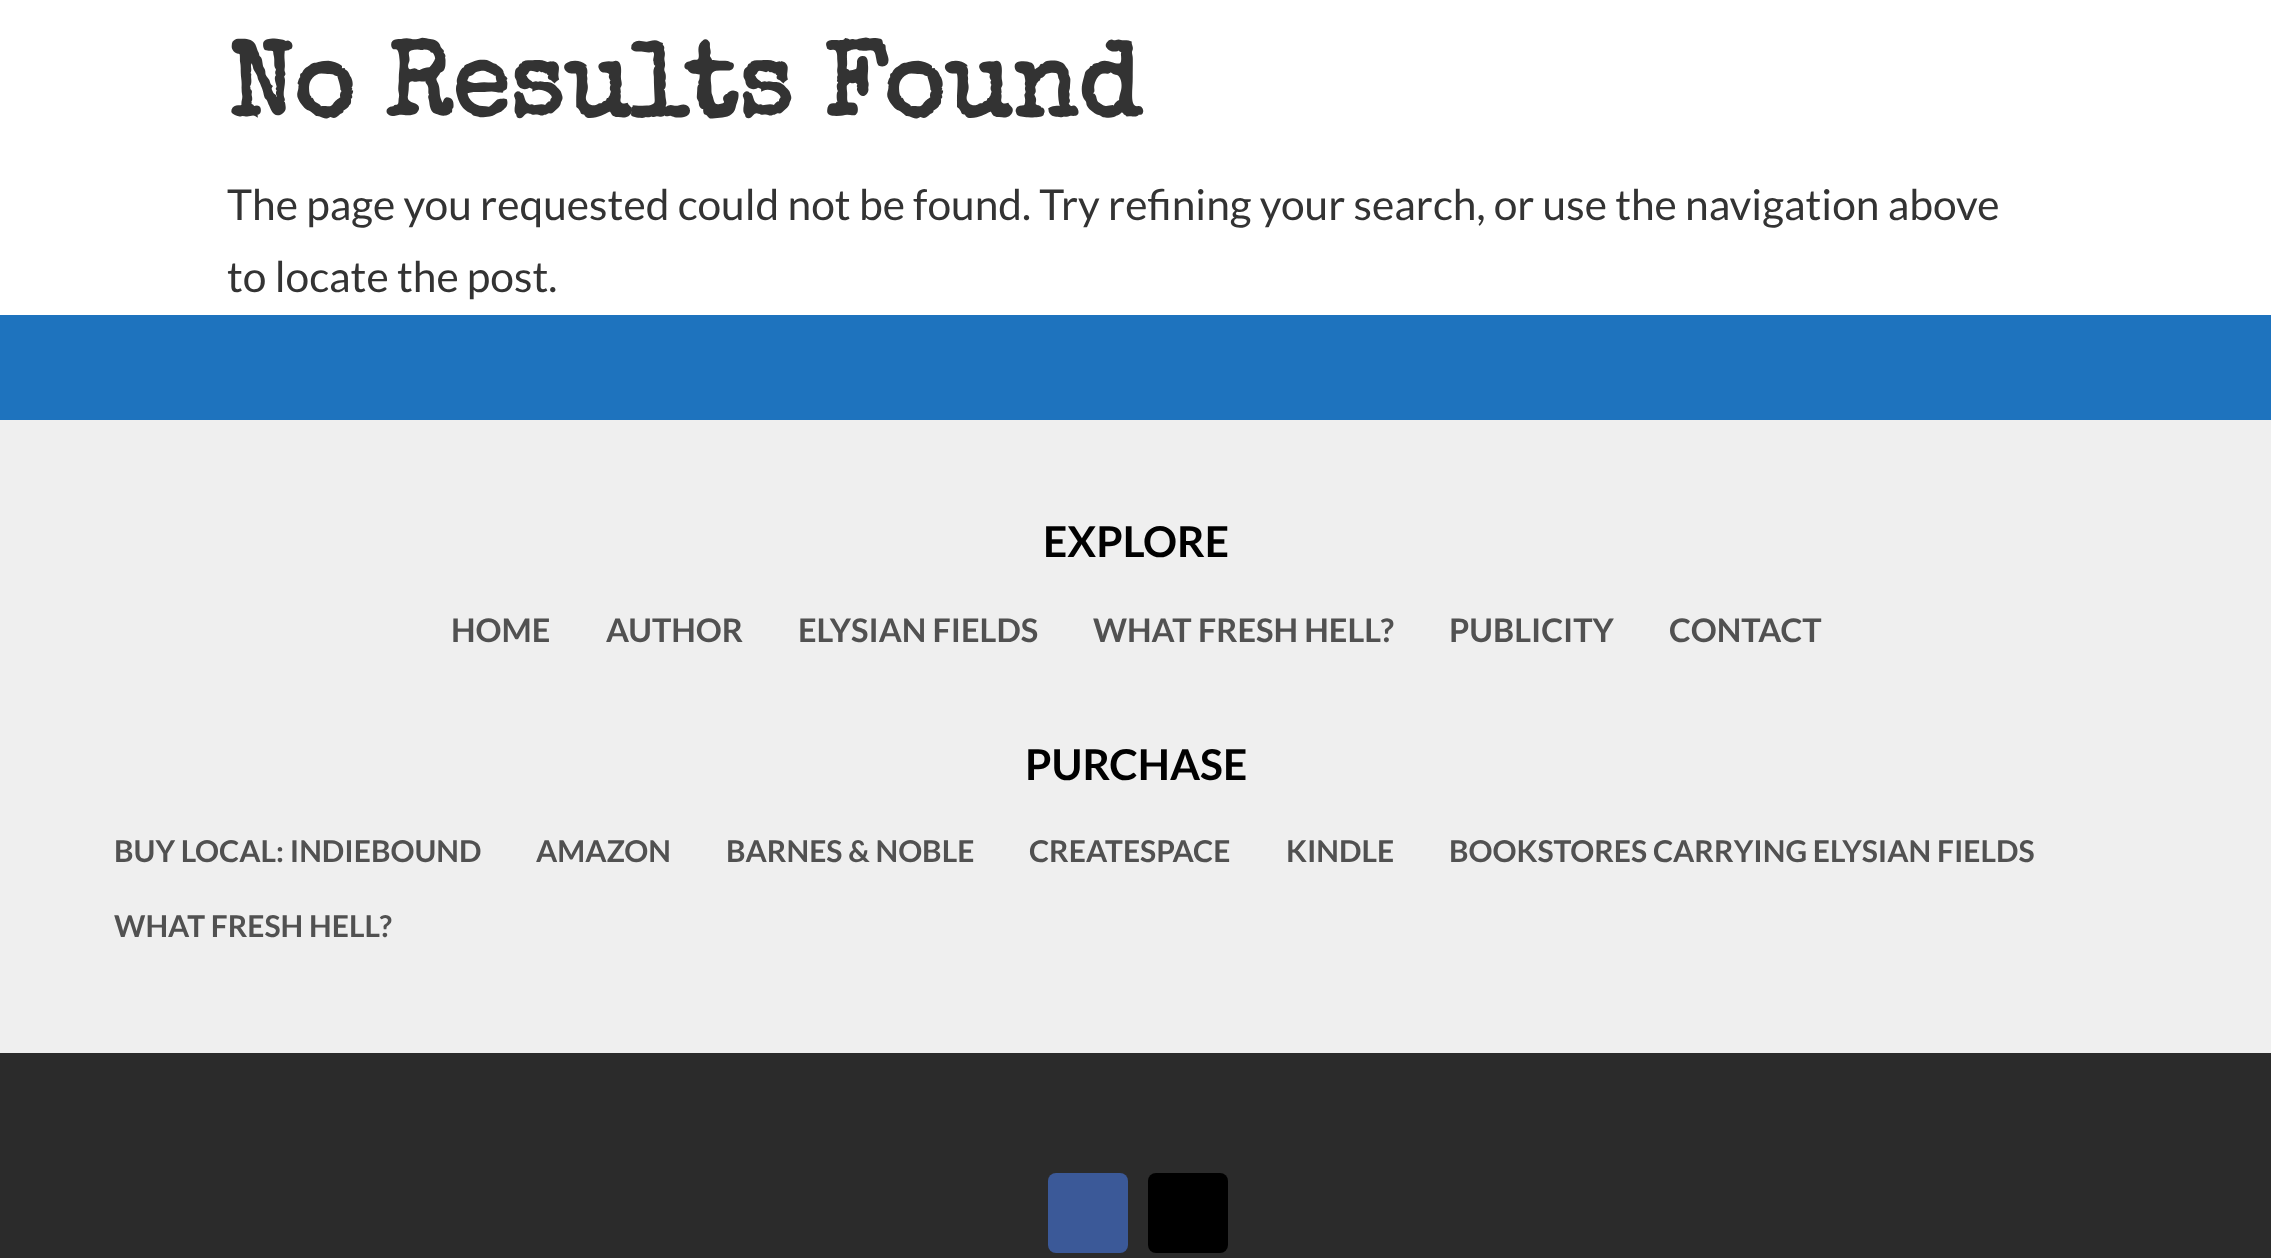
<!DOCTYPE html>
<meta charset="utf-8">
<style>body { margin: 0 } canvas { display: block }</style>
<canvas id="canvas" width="2271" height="1258"></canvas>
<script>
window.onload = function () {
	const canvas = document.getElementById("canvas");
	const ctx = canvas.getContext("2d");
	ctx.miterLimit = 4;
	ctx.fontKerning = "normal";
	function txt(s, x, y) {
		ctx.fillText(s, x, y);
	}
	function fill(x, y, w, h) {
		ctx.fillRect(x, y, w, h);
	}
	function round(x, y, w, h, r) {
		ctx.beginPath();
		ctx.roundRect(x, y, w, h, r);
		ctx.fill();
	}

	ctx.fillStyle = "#1E73BE";
	fill(0, 0, 2271, 1258);
	ctx.fillStyle = "#FFFFFF";
	fill(0, 0, 2271, 315);
	ctx.fillStyle = "#EFEFEF";
	fill(0, 420, 2271, 633);
	ctx.fillStyle = "#2B2B2B";
	fill(0, 1053, 2271, 205);
	ctx.fillStyle = "#3B5998";
	round(1048, 1173, 80, 80, 8);
	ctx.fillStyle = "#000000";
	round(1148, 1173, 80, 80, 8);
	ctx.font = "bold 105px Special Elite";
	ctx.fillStyle = "#333333";
	txt("No Results Found", 227, 115);
	ctx.font = "42.5px Lato";
	txt("The page you requested could not be found. Try refining your search, or use the navigation above", 227, 220);
	txt("to locate the post.", 227, 292);
	ctx.font = "bold 42.5px Lato";
	ctx.fillStyle = "#000000";
	txt("EXPLORE", 1043, 557);
	ctx.font = "bold 32.5px Lato";
	ctx.fillStyle = "#515151";
	txt("HOME", 451, 642);
	txt("AUTHOR", 606, 642);
	txt("ELYSIAN FIELDS", 798, 642);
	txt("WHAT FRESH HELL?", 1093, 642);
	txt("PUBLICITY", 1449, 642);
	txt("CONTACT", 1669, 642);
	ctx.font = "bold 42.5px Lato";
	ctx.fillStyle = "#000000";
	txt("PURCHASE", 1025, 780);
	ctx.font = "bold 30px Lato";
	ctx.fillStyle = "#515151";
	txt("BUY LOCAL: INDIEBOUND", 114, 862);
	txt("AMAZON", 536, 862);
	txt("BARNES & NOBLE", 726, 862);
	txt("CREATESPACE", 1029, 862);
	txt("KINDLE", 1286, 862);
	txt("BOOKSTORES CARRYING ELYSIAN FIELDS", 1449, 862);
	txt("WHAT FRESH HELL?", 114, 937);
};
</script>
